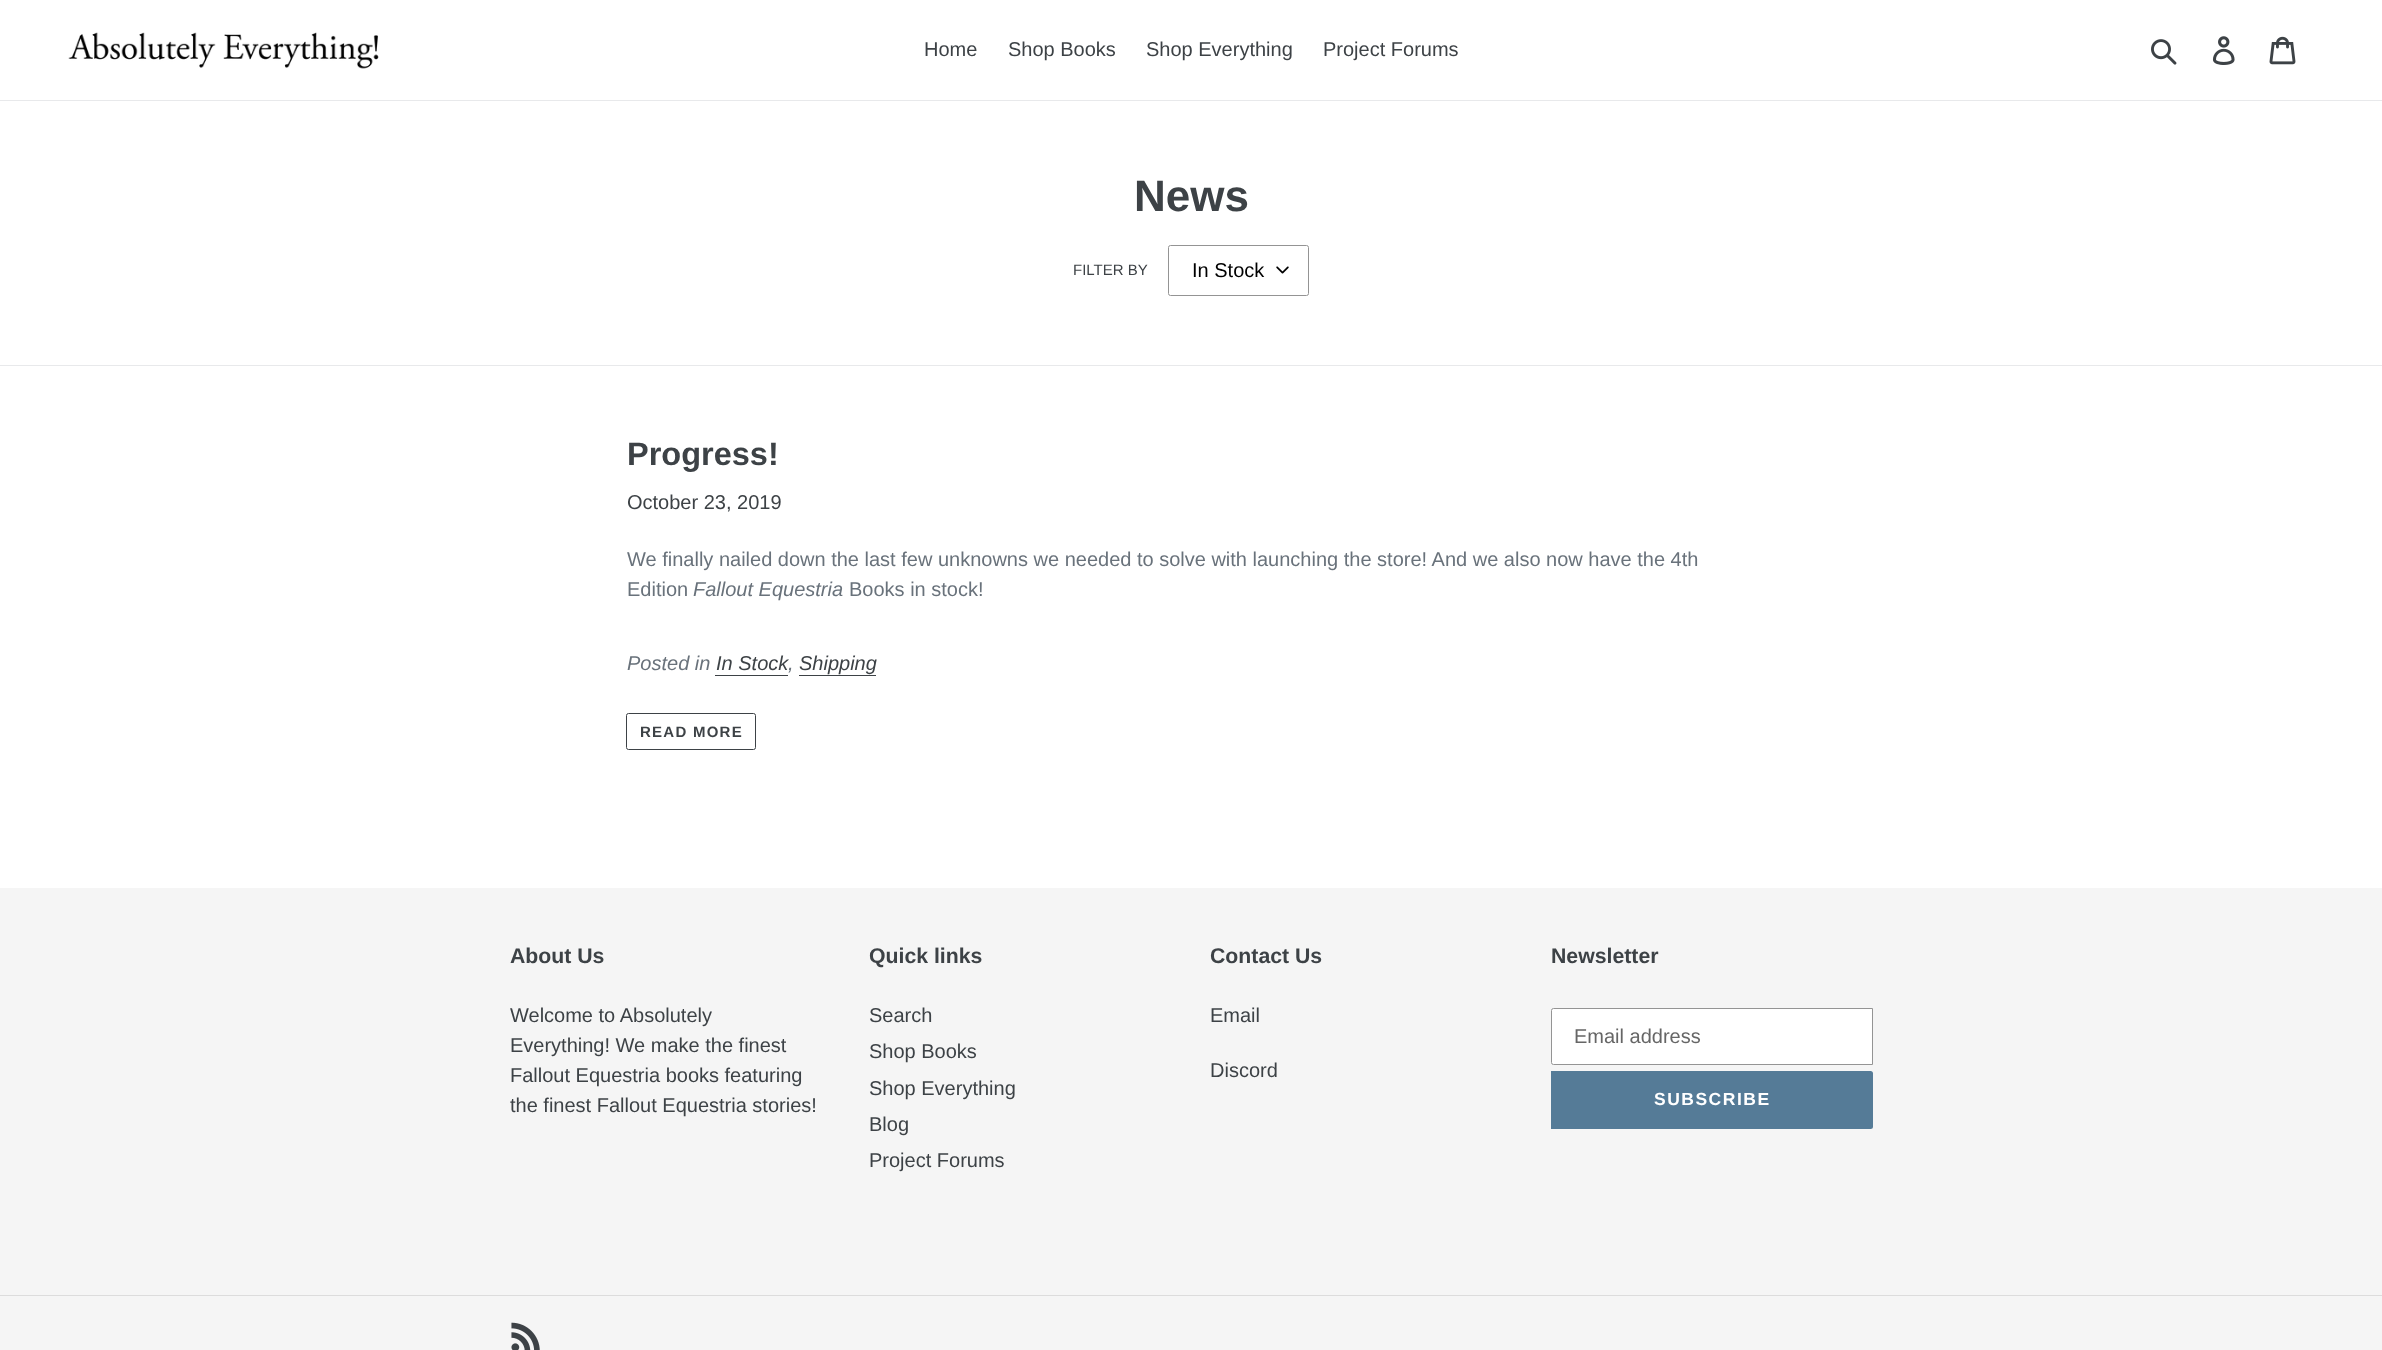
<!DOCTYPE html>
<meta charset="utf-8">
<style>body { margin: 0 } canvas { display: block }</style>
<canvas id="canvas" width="2382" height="1350"></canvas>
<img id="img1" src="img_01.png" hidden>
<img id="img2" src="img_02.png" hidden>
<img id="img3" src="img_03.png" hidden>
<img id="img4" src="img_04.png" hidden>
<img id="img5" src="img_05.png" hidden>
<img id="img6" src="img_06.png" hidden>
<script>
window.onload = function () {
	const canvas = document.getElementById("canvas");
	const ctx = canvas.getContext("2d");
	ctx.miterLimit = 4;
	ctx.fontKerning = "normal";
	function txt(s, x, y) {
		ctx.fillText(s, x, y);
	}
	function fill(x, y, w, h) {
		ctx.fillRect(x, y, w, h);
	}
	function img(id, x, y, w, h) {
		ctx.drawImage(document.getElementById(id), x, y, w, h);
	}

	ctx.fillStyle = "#FFFFFF";
	fill(0, 0, 2382, 1350);
	ctx.fillStyle = "#E8E9EB";
	fill(0, 100, 2382, 1);
	img("img1", 68, 32, 311, 37);
	img("img2", 2151, 39, 26, 26);
	img("img3", 2212, 36, 23, 29);
	img("img4", 2269, 36, 27, 29);
	img("img5", 1276, 266, 13, 8);
	ctx.beginPath();
	ctx.roundRect(1168.5, 245.5, 140, 50, 2);
	ctx.strokeStyle = "#949494";
	ctx.stroke();
	fill(0, 365, 2382, 1);
	ctx.fillStyle = "#3D4246";
	fill(715, 675, 73, 1);
	fill(799, 675, 77, 1);
	ctx.beginPath();
	ctx.roundRect(626.5, 713.5, 129, 36, 2);
	ctx.strokeStyle = "#3D4246";
	ctx.stroke();
	ctx.fillStyle = "#F5F5F5";
	fill(0, 888, 2382, 462);
	ctx.fillStyle = "#FFFFFF";
	ctx.beginPath();
	ctx.roundRect(1551.5, 1008.5, 321, 56, [2, 0, 0, 2]);
	ctx.fill();
	ctx.strokeStyle = "#949494";
	ctx.stroke();
	ctx.fillStyle = "#557B97";
	ctx.beginPath();
	ctx.roundRect(1551, 1071, 322, 58, [0, 2.5, 2.5, 0]);
	ctx.fill();
	ctx.fillStyle = "#DCDCDC";
	fill(0, 1295, 2382, 1);
	img("img6", 511, 1322, 29, 28);
	ctx.font = "20px Liberation Sans";
	ctx.fillStyle = "#3D4246";
	txt("Home", 924, 56);
	txt("Shop Books", 1008, 56);
	txt("Shop Everything", 1146, 56);
	txt("Project Forums", 1323, 56);
	ctx.font = "bold 44px Liberation Sans";
	txt("News", 1134, 211);
	ctx.font = "15px Liberation Sans";
	txt("FILTER BY", 1073, 275);
	ctx.font = "20px Liberation Sans";
	ctx.fillStyle = "#000000";
	txt("In Stock", 1192, 277);
	ctx.font = "bold 32.5px Liberation Sans";
	ctx.fillStyle = "#3D4246";
	txt("Progress!", 627, 465);
	ctx.font = "20px Liberation Sans";
	txt("October 23, 2019", 627, 509);
	ctx.fillStyle = "#69727B";
	txt("We finally nailed down the last few unknowns we needed to solve with launching the store! And we also now have the 4th", 627, 566);
	txt("Edition", 627, 596);
	ctx.font = "italic 20px Liberation Sans";
	txt("Fallout Equestria", 693, 596);
	ctx.font = "20px Liberation Sans";
	txt("Books in stock!", 849, 596);
	ctx.font = "italic 20px Liberation Sans";
	txt("Posted in", 627, 670);
	ctx.fillStyle = "#3D4246";
	txt("In Stock", 716, 670);
	ctx.fillStyle = "#69727B";
	txt(",", 788, 670);
	ctx.fillStyle = "#3D4246";
	txt("Shipping", 799, 670);
	ctx.letterSpacing = "1.25px";
	ctx.font = "bold 15px Liberation Sans";
	txt("READ MORE", 640, 737);
	ctx.letterSpacing = "0px";
	ctx.font = "bold 21.25px Liberation Sans";
	txt("About Us", 510, 963);
	ctx.font = "20px Liberation Sans";
	txt("Welcome to Absolutely", 510, 1022);
	txt("Everything! We make the finest", 510, 1052);
	txt("Fallout Equestria books featuring", 510, 1082);
	txt("the finest Fallout Equestria stories!", 510, 1112);
	ctx.font = "bold 21.25px Liberation Sans";
	txt("Quick links", 869, 963);
	ctx.font = "20px Liberation Sans";
	txt("Search", 869, 1022);
	txt("Shop Books", 869, 1058);
	txt("Shop Everything", 869, 1095);
	txt("Blog", 869, 1131);
	txt("Project Forums", 869, 1167);
	ctx.font = "bold 21.25px Liberation Sans";
	txt("Contact Us", 1210, 963);
	ctx.font = "20px Liberation Sans";
	txt("Email", 1210, 1022);
	txt("Discord", 1210, 1077);
	ctx.font = "bold 21.25px Liberation Sans";
	txt("Newsletter", 1551, 963);
	ctx.font = "20px Liberation Sans";
	ctx.fillStyle = "#666666";
	txt("Email address", 1574, 1043);
	ctx.letterSpacing = "1.5px";
	ctx.font = "bold 17.5px Liberation Sans";
	ctx.fillStyle = "#FFFFFF";
	txt("SUBSCRIBE", 1654, 1105);
};
</script>
